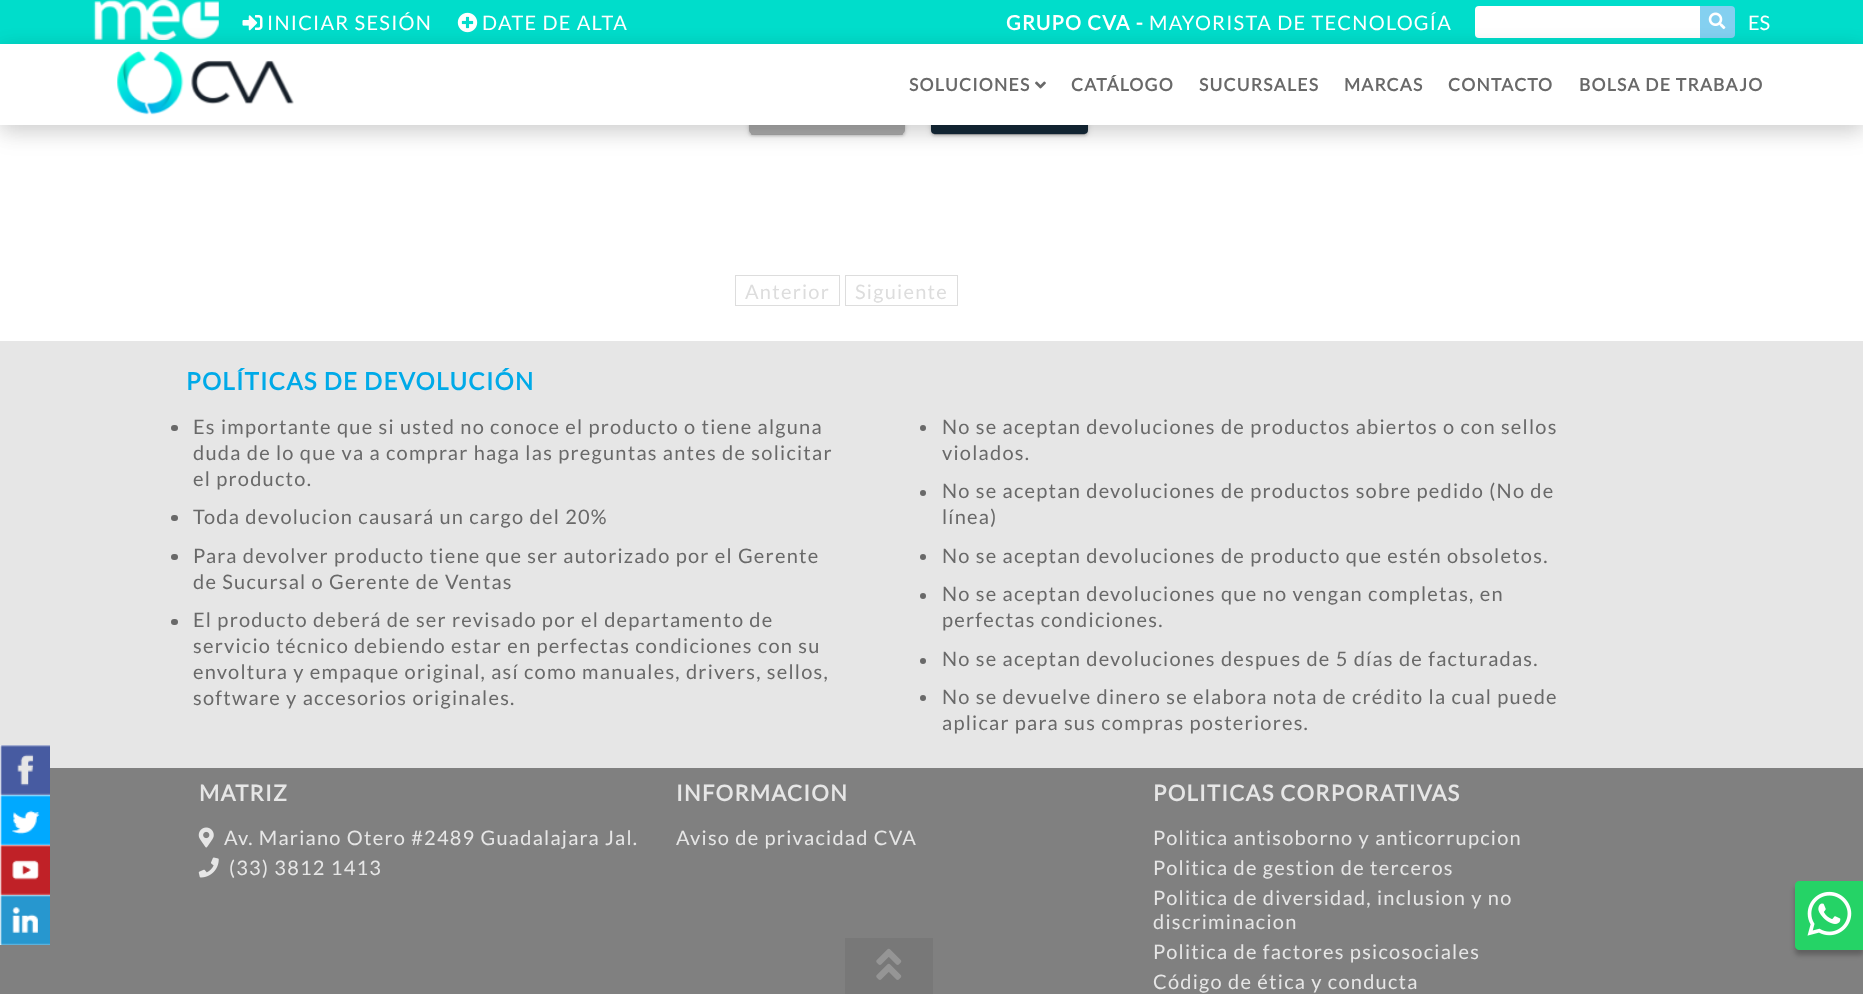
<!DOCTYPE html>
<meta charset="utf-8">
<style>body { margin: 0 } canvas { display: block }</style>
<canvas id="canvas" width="1863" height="994"></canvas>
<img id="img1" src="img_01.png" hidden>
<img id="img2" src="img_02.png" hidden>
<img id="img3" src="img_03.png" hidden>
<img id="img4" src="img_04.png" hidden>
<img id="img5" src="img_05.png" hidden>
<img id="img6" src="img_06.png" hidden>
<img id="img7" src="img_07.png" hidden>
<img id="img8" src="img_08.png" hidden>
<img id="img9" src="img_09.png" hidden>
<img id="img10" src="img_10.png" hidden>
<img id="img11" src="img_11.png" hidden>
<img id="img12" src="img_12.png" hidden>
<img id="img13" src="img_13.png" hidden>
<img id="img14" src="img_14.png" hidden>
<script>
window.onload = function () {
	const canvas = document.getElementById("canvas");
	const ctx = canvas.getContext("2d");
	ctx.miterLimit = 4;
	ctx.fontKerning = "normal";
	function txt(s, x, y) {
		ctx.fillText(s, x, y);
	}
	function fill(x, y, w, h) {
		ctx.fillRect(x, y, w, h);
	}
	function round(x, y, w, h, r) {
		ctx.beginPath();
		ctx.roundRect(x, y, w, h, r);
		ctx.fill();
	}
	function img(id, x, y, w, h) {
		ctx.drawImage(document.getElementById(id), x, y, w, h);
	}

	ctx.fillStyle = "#FFFFFF";
	fill(0, 0, 1863, 994);
	ctx.fillStyle = "#00DDCB";
	fill(0, 0, 1863, 44);
	img("img1", 93, 0, 126, 40);
	img("img2", 242, 15, 21, 16);
	img("img3", 457, 12, 21, 21);
	ctx.fillStyle = "#FFFFFF";
	ctx.beginPath();
	ctx.roundRect(1475, 6, 225, 32, [4, 0, 0, 4]);
	ctx.fill();
	ctx.fillStyle = "#84D0F0";
	ctx.beginPath();
	ctx.roundRect(1700, 6, 35, 32, [0, 4, 4, 0]);
	ctx.fill();
	img("img4", 1708, 12, 18, 18);
	ctx.fillStyle = "rgba(0, 0, 0, 0.12)";
	ctx.filter = "blur(3px)";
	ctx.beginPath();
	ctx.roundRect(749, 98, 156, 37, 4);
	ctx.fill();
	ctx.filter = "none";
	ctx.fillStyle = "rgba(0, 0, 0, 0.14)";
	ctx.filter = "blur(1px)";
	ctx.beginPath();
	ctx.roundRect(749, 99, 156, 37, 4);
	ctx.fill();
	ctx.filter = "none";
	ctx.fillStyle = "rgba(0, 0, 0, 0.2)";
	ctx.filter = "blur(0.5px)";
	ctx.beginPath();
	ctx.roundRect(751, 103, 152, 32, 1);
	ctx.fill();
	ctx.filter = "none";
	ctx.fillStyle = "#AAAAAA";
	ctx.beginPath();
	ctx.roundRect(749.5, 96.5, 155, 37, 3.5);
	ctx.fill();
	ctx.strokeStyle = "#AAAAAA";
	ctx.stroke();
	ctx.fillStyle = "rgba(0, 0, 0, 0.12)";
	ctx.filter = "blur(3px)";
	ctx.beginPath();
	ctx.roundRect(931, 98, 157, 37, 4);
	ctx.fill();
	ctx.filter = "none";
	ctx.fillStyle = "rgba(0, 0, 0, 0.14)";
	ctx.filter = "blur(1px)";
	ctx.beginPath();
	ctx.roundRect(931, 99, 157, 37, 4);
	ctx.fill();
	ctx.filter = "none";
	ctx.fillStyle = "rgba(0, 0, 0, 0.2)";
	ctx.filter = "blur(0.5px)";
	ctx.beginPath();
	ctx.roundRect(934, 103, 151, 32, 1);
	ctx.fill();
	ctx.filter = "none";
	ctx.fillStyle = "#152938";
	ctx.beginPath();
	ctx.roundRect(932.5, 97.5, 154, 35, 2.5);
	ctx.fill();
	ctx.strokeStyle = "#152938";
	ctx.lineWidth = 3;
	ctx.stroke();
	ctx.fillStyle = "rgba(0, 0, 0, 0.1)";
	ctx.filter = "blur(12.5px)";
	ctx.beginPath();
	ctx.rect(0, 51, 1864, 82);
	ctx.fill();
	ctx.filter = "none";
	ctx.filter = "blur(10px)";
	ctx.beginPath();
	ctx.rect(0, 49, 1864, 81);
	ctx.fill();
	ctx.filter = "none";
	ctx.fillStyle = "#FFFFFF";
	fill(0, 44, 1863, 81);
	img("img5", 117, 50, 177, 65);
	img("img6", 1035, 81, 11, 8);
	ctx.strokeStyle = "#DDDDDD";
	ctx.lineWidth = 1;
	ctx.strokeRect(735.5, 275.5, 104, 30);
	ctx.strokeRect(845.5, 275.5, 112, 30);
	ctx.fillStyle = "#E6E6E6";
	fill(0, 341, 1863, 427);
	ctx.fillStyle = "#696969";
	round(171, 425, 7, 6, 3);
	ctx.beginPath();
	ctx.arc(923, 428, 3, 0, Math.PI * 2);
	ctx.fill();
	round(171, 515, 7, 6, 3);
	ctx.beginPath();
	ctx.arc(923, 493, 3, 0, Math.PI * 2);
	ctx.fill();
	round(171, 554, 7, 6, 3);
	ctx.beginPath();
	ctx.arc(923, 557, 3, 0, Math.PI * 2);
	ctx.fill();
	round(171, 619, 7, 6, 3);
	ctx.beginPath();
	ctx.arc(923, 596, 3, 0, Math.PI * 2);
	ctx.fill();
	ctx.beginPath();
	ctx.arc(923, 661, 3, 0, Math.PI * 2);
	ctx.fill();
	ctx.beginPath();
	ctx.arc(923, 698, 3, 0, Math.PI * 2);
	ctx.fill();
	ctx.fillStyle = "#808080";
	fill(0, 768, 1863, 226);
	img("img7", 0, 745, 50, 50);
	img("img8", 0, 795, 50, 50);
	img("img9", 0, 845, 50, 50);
	img("img10", 0, 895, 50, 50);
	img("img11", 198, 827, 16, 21);
	img("img12", 198, 857, 21, 21);
	ctx.fillStyle = "rgba(0, 0, 0, 0.25)";
	ctx.filter = "blur(2.5px)";
	ctx.beginPath();
	ctx.roundRect(1795, 886, 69, 69, 4);
	ctx.fill();
	ctx.filter = "none";
	ctx.fillStyle = "#25D366";
	ctx.beginPath();
	ctx.moveTo(1799, 881);
	ctx.lineTo(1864, 881);
	ctx.lineTo(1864, 950);
	ctx.lineTo(1799, 950);
	ctx.bezierCurveTo(1797, 950, 1795, 948, 1795, 946);
	ctx.lineTo(1795, 885);
	ctx.bezierCurveTo(1795, 883, 1797, 881, 1799, 881);
	ctx.closePath();
	ctx.fill();
	img("img13", 1807, 891, 45, 45);
	ctx.fillStyle = "#787878";
	fill(845, 938, 88, 56);
	img("img14", 876, 948, 26, 32);
	ctx.letterSpacing = "1.25px";
	ctx.font = "20px Lato";
	ctx.fillStyle = "#FFFFFF";
	txt("INICIAR SESIÓN", 267, 30);
	txt("DATE DE ALTA", 482, 30);
	ctx.font = "bold 20px Lato";
	txt("GRUPO CVA -", 1006, 30);
	ctx.font = "20px Lato";
	txt("MAYORISTA DE TECNOLOGÍA", 1149, 30);
	ctx.letterSpacing = "0px";
	txt("ES", 1748, 30);
	ctx.letterSpacing = "1.25px";
	ctx.font = "bold 17.5px Lato";
	ctx.fillStyle = "#696969";
	txt("SOLUCIONES", 909, 91);
	txt("CATÁLOGO", 1071, 91);
	txt("SUCURSALES", 1199, 91);
	txt("MARCAS", 1344, 91);
	txt("CONTACTO", 1448, 91);
	txt("BOLSA DE TRABAJO", 1579, 91);
	ctx.font = "20px Lato";
	ctx.fillStyle = "#DDDDDD";
	txt("Anterior", 745, 299);
	txt("Siguiente", 855, 299);
	ctx.font = "bold 24px Lato";
	ctx.fillStyle = "#00AAE8";
	txt("POLÍTICAS DE DEVOLUCIÓN", 186, 390);
	ctx.font = "20px Lato";
	ctx.fillStyle = "#696969";
	txt("Es importante que si usted no conoce el producto o tiene alguna", 193, 434);
	txt("duda de lo que va a comprar haga las preguntas antes de solicitar", 193, 460);
	txt("el producto.", 193, 486);
	txt("No se aceptan devoluciones de productos abiertos o con sellos", 942, 434);
	txt("violados.", 942, 460);
	txt("Toda devolucion causará un cargo del 20%", 193, 524);
	txt("No se aceptan devoluciones de productos sobre pedido (No de", 942, 498);
	txt("línea)", 942, 524);
	txt("Para devolver producto tiene que ser autorizado por el Gerente", 193, 563);
	txt("de Sucursal o Gerente de Ventas", 193, 589);
	txt("No se aceptan devoluciones de producto que estén obsoletos.", 942, 563);
	txt("El producto deberá de ser revisado por el departamento de", 193, 627);
	txt("servicio técnico debiendo estar en perfectas condiciones con su", 193, 653);
	txt("envoltura y empaque original, así como manuales, drivers, sellos,", 193, 679);
	txt("software y accesorios originales.", 193, 705);
	txt("No se aceptan devoluciones que no vengan completas, en", 942, 601);
	txt("perfectas condiciones.", 942, 627);
	txt("No se aceptan devoluciones despues de 5 días de facturadas.", 942, 666);
	txt("No se devuelve dinero se elabora nota de crédito la cual puede", 942, 704);
	txt("aplicar para sus compras posteriores.", 942, 730);
	ctx.font = "bold 22px Lato";
	ctx.fillStyle = "#E6E6E6";
	txt("MATRIZ", 199, 801);
	ctx.font = "20px Lato";
	txt("Av. Mariano Otero #2489 Guadalajara Jal.", 224, 845);
	txt("(33) 3812 1413", 229, 875);
	ctx.font = "bold 22px Lato";
	txt("INFORMACION", 676, 801);
	ctx.font = "20px Lato";
	txt("Aviso de privacidad CVA", 676, 845);
	ctx.font = "bold 22px Lato";
	txt("POLITICAS CORPORATIVAS", 1153, 801);
	ctx.font = "20px Lato";
	txt("Politica antisoborno y anticorrupcion", 1153, 845);
	txt("Politica de gestion de terceros", 1153, 875);
	txt("Politica de diversidad, inclusion y no", 1153, 905);
	txt("discriminacion", 1153, 929);
	txt("Politica de factores psicosociales", 1153, 959);
	txt("Código de ética y conducta", 1153, 989);
};
</script>
